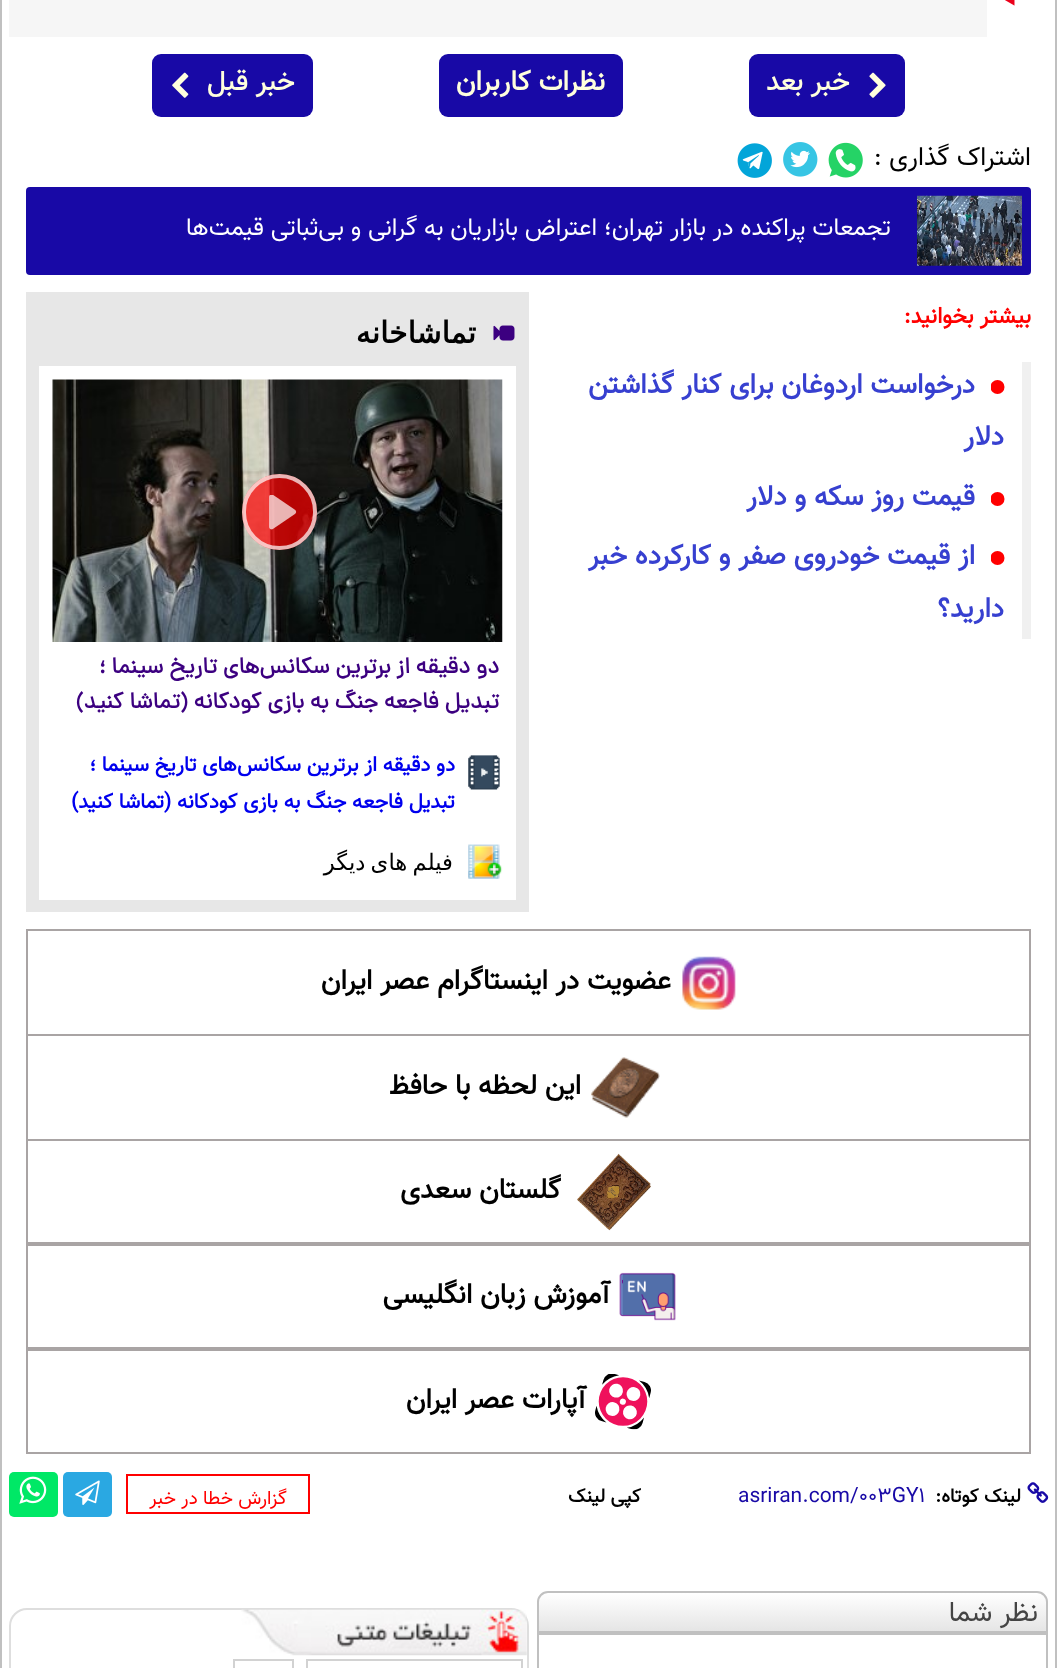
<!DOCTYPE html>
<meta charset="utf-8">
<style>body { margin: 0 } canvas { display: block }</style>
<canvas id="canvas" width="1057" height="1668"></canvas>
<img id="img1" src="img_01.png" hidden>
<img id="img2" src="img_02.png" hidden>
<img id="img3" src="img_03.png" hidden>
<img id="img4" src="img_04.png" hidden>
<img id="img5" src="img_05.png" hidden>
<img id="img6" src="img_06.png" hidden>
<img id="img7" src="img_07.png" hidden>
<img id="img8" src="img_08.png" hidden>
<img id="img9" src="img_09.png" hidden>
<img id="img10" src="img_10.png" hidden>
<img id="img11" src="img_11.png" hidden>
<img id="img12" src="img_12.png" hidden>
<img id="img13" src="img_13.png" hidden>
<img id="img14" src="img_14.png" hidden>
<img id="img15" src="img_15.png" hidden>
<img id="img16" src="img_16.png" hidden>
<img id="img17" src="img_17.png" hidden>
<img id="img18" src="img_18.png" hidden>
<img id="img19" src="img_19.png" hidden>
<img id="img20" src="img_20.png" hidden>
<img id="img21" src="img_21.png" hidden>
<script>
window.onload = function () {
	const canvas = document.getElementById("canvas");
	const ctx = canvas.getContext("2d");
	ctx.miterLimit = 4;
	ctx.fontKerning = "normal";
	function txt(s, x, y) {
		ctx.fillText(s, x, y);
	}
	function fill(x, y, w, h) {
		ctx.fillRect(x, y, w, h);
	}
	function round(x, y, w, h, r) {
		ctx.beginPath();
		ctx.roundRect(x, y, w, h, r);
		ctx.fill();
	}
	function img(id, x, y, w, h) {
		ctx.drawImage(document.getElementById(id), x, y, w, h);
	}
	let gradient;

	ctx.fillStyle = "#FFFFFF";
	fill(0, 0, 1057, 1668);
	ctx.strokeStyle = "#C0C0C0";
	ctx.lineWidth = 2;
	ctx.strokeRect(1, -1, 1055, 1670);
	img("img1", 1005, 0, 10, 6);
	ctx.fillStyle = "#F6F6F6";
	fill(9, 0, 978, 37);
	ctx.fillStyle = "#1809A6";
	round(749, 54, 156, 63, 9);
	img("img2", 869, 72, 17, 26);
	round(439, 54, 184, 63, 9);
	round(152, 54, 161, 63, 9);
	img("img3", 172, 72, 17, 26);
	img("img4", 828, 142, 35, 36);
	img("img5", 783, 142, 35, 35);
	img("img6", 737, 143, 35, 35);
	round(26, 187, 1005, 88, 4);
	img("img7", 917, 195, 105, 71);
	ctx.fillStyle = "#F0F0F0";
	fill(1022, 362, 9, 277);
	ctx.save();
	ctx.beginPath();
	ctx.rect(991, 380, 14, 14);
	ctx.clip();
	ctx.fillStyle = "#FF0000";
	ctx.beginPath();
	ctx.arc(997.5, 387, 7, 0, Math.PI * 2);
	ctx.fill();
	ctx.restore();
	ctx.save();
	ctx.beginPath();
	ctx.rect(991, 492, 14, 14);
	ctx.clip();
	ctx.fillStyle = "#FF0000";
	ctx.beginPath();
	ctx.arc(997.5, 499, 7, 0, Math.PI * 2);
	ctx.fill();
	ctx.restore();
	ctx.save();
	ctx.beginPath();
	ctx.rect(991, 551, 14, 14);
	ctx.clip();
	ctx.fillStyle = "#FF0000";
	ctx.beginPath();
	ctx.arc(997.5, 558, 7, 0, Math.PI * 2);
	ctx.fill();
	ctx.restore();
	ctx.fillStyle = "#E7E7E7";
	fill(26, 292, 503, 620);
	ctx.fillStyle = "#FFFFFF";
	fill(39, 366, 477, 534);
	img("img8", 493, 325, 22, 16);
	img("img9", 52, 379, 451, 263);
	ctx.fillStyle = "rgba(255, 0, 0, 0.7)";
	round(242, 474, 75, 76, 37.5);
	ctx.beginPath();
	ctx.roundRect(244, 476, 71, 72, 35.5);
	ctx.strokeStyle = "rgba(255, 255, 255, 0.7)";
	ctx.lineWidth = 4;
	ctx.stroke();
	img("img10", 269, 495, 28, 35);
	img("img11", 468, 755, 32, 35);
	img("img12", 468, 844, 35, 35);
	ctx.fillStyle = "#A9A4A4";
	fill(26, 929, 1005, 2);
	fill(1029, 929, 2, 105);
	fill(26, 929, 2, 105);
	img("img13", 682, 956, 54, 54);
	fill(26, 1034, 1005, 2);
	fill(1029, 1034, 2, 105);
	fill(26, 1034, 2, 105);
	img("img14", 591, 1057, 69, 61);
	ctx.strokeStyle = "#A9A4A4";
	ctx.lineWidth = 2;
	ctx.strokeRect(27, 1140, 1003, 103);
	img("img15", 577, 1153, 74, 78);
	ctx.strokeRect(27, 1245, 1003, 103);
	img("img16", 619, 1272, 57, 49);
	ctx.strokeRect(27, 1350, 1003, 103);
	img("img17", 595, 1374, 56, 56);
	img("img18", 1027, 1482, 22, 21);
	ctx.strokeStyle = "#FF0000";
	ctx.strokeRect(127, 1475, 182, 38);
	ctx.fillStyle = "#2AA8E2";
	round(63, 1472, 49, 45, 5);
	img("img19", 75, 1480, 25, 25);
	ctx.fillStyle = "#00E866";
	round(9, 1472, 49, 45, 5);
	img("img20", 19, 1476, 28, 28);
	ctx.save();
	ctx.beginPath();
	ctx.roundRect(537, 1591, 511, 42, [11, 11, 0, 0]);
	ctx.clip();
	gradient = ctx.createLinearGradient(793, 1593, 793, 1631);
	gradient.addColorStop(0, "#FFFFFF");
	gradient.addColorStop(1, "#E5E5E5");
	ctx.fillStyle = gradient;
	fill(537, 1593, 511, 38);
	ctx.restore();
	ctx.beginPath();
	ctx.roundRect(538, 1592, 509, 40, [10, 10, 0, 0]);
	ctx.strokeStyle = "#C0C0C0";
	ctx.stroke();
	ctx.strokeRect(538, 1634, 509, 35);
	ctx.beginPath();
	ctx.roundRect(10, 1609, 518, 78, 17);
	ctx.strokeStyle = "#DEDEDE";
	ctx.stroke();
	img("img21", 241, 1609, 286, 47);
	ctx.strokeStyle = "#D2D2D2";
	ctx.strokeRect(307, 1660, 215, 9);
	ctx.strokeRect(234, 1660, 59, 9);
	ctx.direction = "rtl";
	ctx.font = "500 28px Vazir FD";
	ctx.fillStyle = "#FFFFDD";
	txt("خبر بعد", 850, 90);
	ctx.font = "bold 28px Vazir FD";
	txt("نظرات کاربران", 605, 90);
	ctx.font = "500 28px Vazir FD";
	txt("خبر قبل", 295, 90);
	ctx.font = "26.25px Vazir FD";
	ctx.fillStyle = "#000000";
	txt("اشتراک گذاری :", 1031, 165);
	ctx.font = "24.5px Vazir FD";
	ctx.fillStyle = "#FFFFFF";
	txt("تجمعات پراکنده در بازار تهران؛ اعتراض بازاریان به گرانی و بی‌ثباتی قیمت‌ها", 891, 235);
	ctx.font = "bold 22.75px Vazir FD";
	ctx.fillStyle = "#FF0000";
	txt("بیشتر بخوانید:", 1031, 323);
	ctx.font = "bold 28px Vazir FD";
	ctx.fillStyle = "#3740D0";
	txt("درخواست اردوغان برای کنار گذاشتن", 975, 393);
	txt("دلار", 1004, 445);
	txt("قیمت روز سکه و دلار", 975, 505);
	txt("از قیمت خودروی صفر و کارکرده خبر", 975, 564);
	txt("دارید؟", 1004, 617);
	ctx.font = "bold 29.75px DejaVu Sans";
	ctx.fillStyle = "#000000";
	txt("تماشاخانه", 476, 343);
	ctx.font = "bold 22.75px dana";
	ctx.fillStyle = "#3C0080";
	txt("دو دقیقه از برترین سکانس‌های تاریخ سینما ؛", 499, 673);
	txt("تبدیل فاجعه جنگ به بازی کودکانه (تماشا کنید)", 499, 708);
	ctx.font = "bold 21px Vazir FD";
	ctx.fillStyle = "#0000EE";
	txt("دو دقیقه از برترین سکانس‌های تاریخ سینما ؛", 455, 771);
	txt("تبدیل فاجعه جنگ به بازی کودکانه (تماشا کنید)", 455, 808);
	ctx.wordSpacing = "-2px";
	ctx.font = "22.75px DejaVu Sans";
	ctx.fillStyle = "#000000";
	txt("فیلم های دیگر", 453, 870);
	ctx.wordSpacing = "0px";
	ctx.font = "bold 28px Vazir FD";
	txt("عضویت در اینستاگرام عصر ایران", 671, 989);
	txt("این لحظه با حافظ", 581, 1094);
	txt("گلستان سعدی", 561, 1198);
	txt("آموزش زبان انگلیسی", 610, 1303);
	txt("آپارات عصر ایران", 586, 1408);
	ctx.font = "bold 19.25px Vazir FD";
	txt("لینک کوتاه:", 1021, 1502);
	ctx.direction = "ltr";
	ctx.font = "21px Vazir FD";
	ctx.fillStyle = "#1809A6";
	txt("asriran.com/003GY1", 738, 1502);
	ctx.direction = "rtl";
	ctx.font = "bold 19.25px Vazir FD";
	ctx.fillStyle = "#000000";
	txt("کپی لینک", 641, 1502);
	ctx.font = "19.25px Vazir FD";
	ctx.fillStyle = "#FF0000";
	txt("‌گزارش خطا در خبر", 287, 1504);
	ctx.font = "28px Vazir FD";
	ctx.fillStyle = "#444444";
	txt("نظر شما", 1038, 1621);
};
</script>
